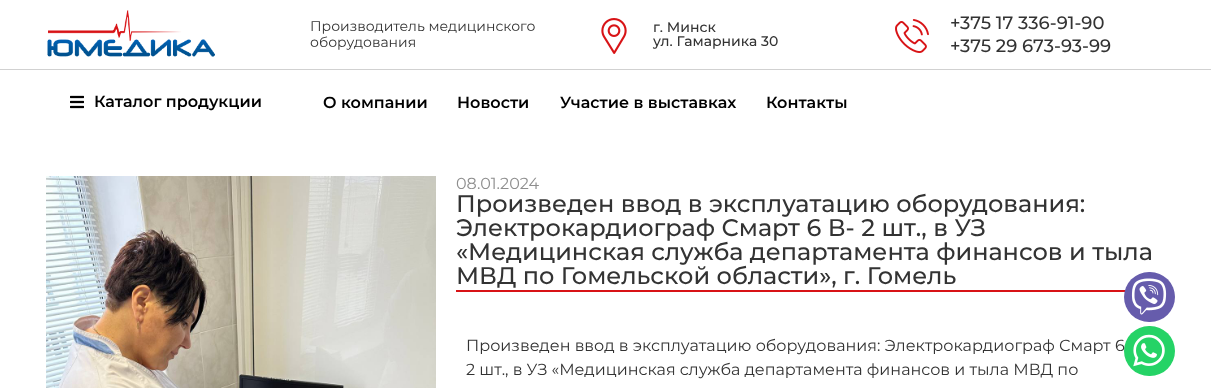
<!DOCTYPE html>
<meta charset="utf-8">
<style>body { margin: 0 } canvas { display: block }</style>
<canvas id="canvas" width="1211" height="388"></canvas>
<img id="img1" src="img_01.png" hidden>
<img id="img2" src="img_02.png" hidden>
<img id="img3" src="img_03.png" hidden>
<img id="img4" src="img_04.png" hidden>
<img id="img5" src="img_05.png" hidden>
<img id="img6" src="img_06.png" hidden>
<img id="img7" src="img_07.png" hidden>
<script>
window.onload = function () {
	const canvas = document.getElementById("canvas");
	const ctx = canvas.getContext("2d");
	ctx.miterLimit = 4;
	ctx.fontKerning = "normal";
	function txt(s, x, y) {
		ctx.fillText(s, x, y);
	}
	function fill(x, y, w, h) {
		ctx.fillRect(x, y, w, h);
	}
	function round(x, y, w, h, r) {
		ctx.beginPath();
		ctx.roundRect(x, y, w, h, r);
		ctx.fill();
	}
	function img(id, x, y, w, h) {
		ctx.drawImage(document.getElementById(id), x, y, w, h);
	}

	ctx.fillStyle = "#FFFFFF";
	fill(0, 0, 1211, 388);
	ctx.fillStyle = "#D1D1D1";
	fill(0, 69, 1211, 1);
	img("img1", 47, 10, 168, 47);
	img("img2", 601, 18, 26, 36);
	img("img3", 895, 19, 34, 34);
	img("img4", 70, 95, 14, 14);
	img("img5", 46, 176, 390, 212);
	ctx.fillStyle = "#D81316";
	fill(456, 290, 669, 2);
	ctx.fillStyle = "#665CAC";
	round(1124, 272, 51, 50, 25);
	img("img6", 1131, 278, 36, 37);
	ctx.fillStyle = "#25D366";
	round(1124, 326, 51, 50, 25);
	img("img7", 1133, 334, 32, 33);
	ctx.font = "14px Montserrat";
	ctx.fillStyle = "#333333";
	txt("Производитель медицинского", 310, 31);
	txt("оборудования", 310, 47);
	ctx.font = "500 14px Montserrat";
	txt("г. Минск", 653, 32);
	txt("ул. Гамарника 30", 653, 46);
	ctx.font = "500 18px Montserrat";
	txt("+375 17 336-91-90", 950, 29);
	txt("+375 29 673-93-99", 950, 52);
	ctx.font = "600 16px Montserrat";
	ctx.fillStyle = "#000000";
	txt("Каталог продукции", 94, 107);
	txt("О компании", 323, 108);
	txt("Новости", 457, 108);
	txt("Участие в выставках", 560, 108);
	txt("Контакты", 766, 108);
	ctx.font = "16px Montserrat";
	ctx.fillStyle = "#8E8E8E";
	txt("08.01.2024", 456, 189);
	ctx.font = "500 24px Montserrat";
	ctx.fillStyle = "#333333";
	txt("Произведен ввод в эксплуатацию оборудования:", 456, 212);
	txt("Электрокардиограф Смарт 6 В- 2 шт., в УЗ", 456, 236);
	txt("«Медицинская служба департамента финансов и тыла", 456, 260);
	txt("МВД по Гомельской области», г. Гомель", 456, 284);
	ctx.font = "16px Montserrat";
	txt("Произведен ввод в эксплуатацию оборудования: Электрокардиограф Смарт 6", 466, 351);
	txt("2 шт., в УЗ «Медицинская служба департамента финансов и тыла МВД по", 466, 375);
};
</script>
